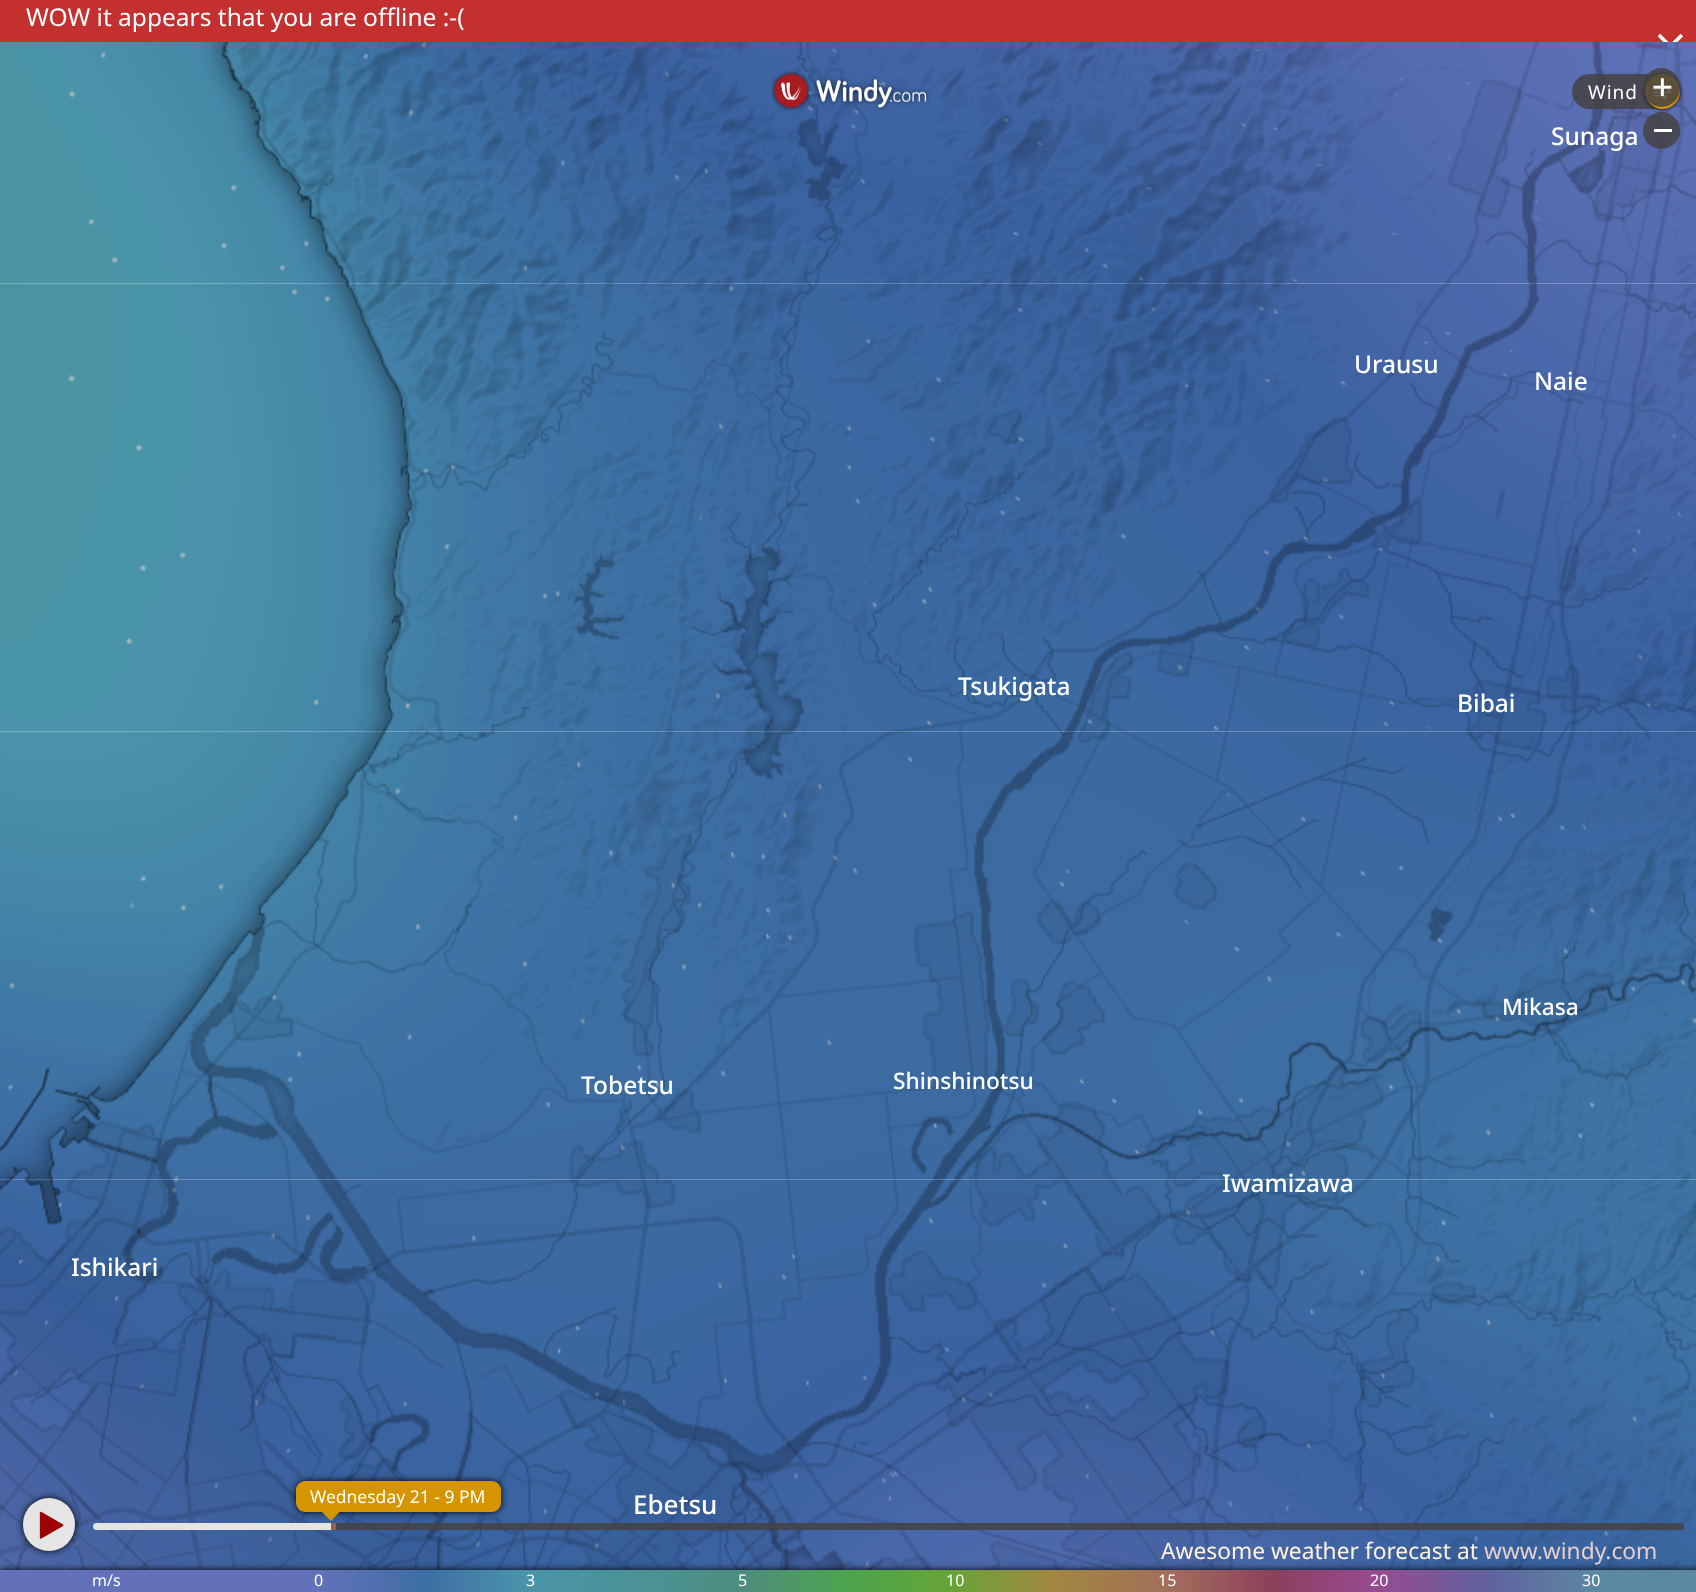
<!DOCTYPE html>
<meta charset="utf-8">
<style>body { margin: 0 } canvas { display: block }</style>
<canvas id="canvas" width="1696" height="1592"></canvas>
<img id="img1" src="img_01.png" hidden>
<img id="img2" src="img_13.png" hidden>
<img id="img3" src="img_08.png" hidden>
<img id="img4" src="img_18.png" hidden>
<img id="img5" src="img_11.png" hidden>
<img id="img6" src="img_06.png" hidden>
<img id="img7" src="img_12.png" hidden>
<img id="img8" src="img_07.png" hidden>
<img id="img9" src="img_14.png" hidden>
<img id="img10" src="img_09.png" hidden>
<img id="img11" src="img_15.png" hidden>
<img id="img12" src="img_10.png" hidden>
<img id="img13" src="img_16.png" hidden>
<img id="img14" src="img_17.png" hidden>
<img id="img15" src="img_19.png" hidden>
<img id="img16" src="img_20.png" hidden>
<img id="img17" src="img_21.png" hidden>
<img id="img18" src="img_22.png" hidden>
<img id="img19" src="img_23.png" hidden>
<img id="img20" src="img_24.png" hidden>
<img id="img21" src="img_25.png" hidden>
<img id="img22" src="img_44.png" hidden>
<img id="img23" src="img_31.png" hidden>
<img id="img24" src="img_27.png" hidden>
<img id="img25" src="img_02.png" hidden>
<img id="img26" src="img_03.png" hidden>
<img id="img27" src="img_29.png" hidden>
<img id="img28" src="img_04.png" hidden>
<img id="img29" src="img_05.png" hidden>
<img id="img30" src="img_30.png" hidden>
<img id="img31" src="img_26.png" hidden>
<img id="img32" src="img_32.png" hidden>
<img id="img33" src="img_28.png" hidden>
<img id="img34" src="img_33.png" hidden>
<img id="img35" src="img_34.png" hidden>
<img id="img36" src="img_35.png" hidden>
<img id="img37" src="img_36.png" hidden>
<img id="img38" src="img_37.png" hidden>
<img id="img39" src="img_38.png" hidden>
<img id="img40" src="img_39.png" hidden>
<img id="img41" src="img_40.png" hidden>
<img id="img42" src="img_41.png" hidden>
<img id="img43" src="img_42.png" hidden>
<img id="img44" src="img_43.png" hidden>
<img id="img45" src="img_45.png" hidden>
<script>
window.onload = function () {
	const canvas = document.getElementById("canvas");
	const ctx = canvas.getContext("2d");
	ctx.miterLimit = 4;
	ctx.fontKerning = "normal";
	function txt(s, x, y) {
		ctx.fillText(s, x, y);
	}
	function fill(x, y, w, h) {
		ctx.fillRect(x, y, w, h);
	}
	function round(x, y, w, h, r) {
		ctx.beginPath();
		ctx.roundRect(x, y, w, h, r);
		ctx.fill();
	}
	function img(id, x, y, w, h) {
		ctx.drawImage(document.getElementById(id), x, y, w, h);
	}
	let gradient;

	ctx.fillStyle = "#FFFFFF";
	fill(0, 0, 1696, 1592);
	ctx.fillStyle = "#C42F2F";
	fill(0, 0, 1696, 42);
	img("img1", 1657, 33, 26, 9);
	img("img2", 595, 283, 448, 449);
	img("img3", 595, 42, 448, 242);
	img("img4", 595, 731, 448, 449);
	img("img5", 0, 283, 147, 449);
	img("img6", 0, 42, 147, 242);
	img("img7", 147, 283, 448, 449);
	img("img8", 147, 42, 448, 242);
	img("img9", 1043, 283, 448, 449);
	img("img10", 1043, 42, 448, 242);
	img("img11", 1491, 283, 205, 449);
	img("img12", 1491, 42, 205, 242);
	img("img13", 0, 731, 147, 449);
	img("img14", 147, 731, 448, 449);
	img("img15", 1043, 731, 448, 449);
	img("img16", 1491, 731, 205, 449);
	img("img17", 0, 1179, 147, 391);
	img("img18", 147, 1179, 448, 391);
	img("img19", 595, 1179, 448, 391);
	img("img20", 1043, 1179, 448, 391);
	img("img21", 1491, 1179, 205, 391);
	img("img22", 8, 42, 1688, 1528);
	img("img23", 595, 283, 448, 449);
	img("img24", 595, 42, 448, 242);
	img("img25", 771, 70, 41, 41);
	img("img26", 813, 76, 117, 35);
	img("img27", 1491, 42, 205, 242);
	ctx.fillStyle = "rgba(68, 65, 65, 0.84)";
	round(1572, 74, 108, 35, 17.5);
	ctx.fillStyle = "#000000";
	ctx.filter = "blur(2px)";
	ctx.beginPath();
	ctx.roundRect(1645, 74, 35, 35, 17.5);
	ctx.fill();
	ctx.filter = "none";
	ctx.fillStyle = "#D49500";
	ctx.beginPath();
	ctx.arc(1662.5, 91.5, 17.5, 0, Math.PI * 2);
	ctx.fill();
	img("img28", 1652, 88, 20, 12);
	ctx.fillStyle = "rgba(68, 65, 65, 0.84)";
	round(1643, 68, 37, 39, 18.5);
	img("img29", 1653, 78, 19, 19);
	ctx.beginPath();
	ctx.arc(1661.5, 130.5, 18.5, 0, Math.PI * 2);
	ctx.fill();
	ctx.fillStyle = "#FFFFFF";
	fill(1654, 129, 18, 3);
	img("img30", 321, 283, 274, 449);
	img("img31", 201, 42, 394, 242);
	img("img32", 1043, 283, 448, 449);
	img("img33", 1043, 42, 448, 242);
	img("img34", 1491, 284, 205, 448);
	img("img35", 0, 1032, 147, 148);
	img("img36", 147, 731, 448, 449);
	img("img37", 595, 731, 448, 449);
	img("img38", 1043, 731, 448, 449);
	img("img39", 1491, 732, 205, 448);
	img("img40", 0, 1180, 147, 390);
	img("img41", 147, 1180, 448, 390);
	img("img42", 595, 1180, 448, 390);
	img("img43", 1043, 1180, 448, 390);
	img("img44", 1491, 1180, 205, 390);
	ctx.fillStyle = "#000000";
	ctx.filter = "blur(3.5px)";
	ctx.beginPath();
	ctx.roundRect(23, 1498, 52, 53, 26);
	ctx.fill();
	ctx.filter = "none";
	ctx.fillStyle = "#E5E5E5";
	round(23, 1498, 52, 53, 26);
	img("img45", 39, 1511, 25, 28);
	ctx.fillStyle = "#000000";
	ctx.filter = "blur(3.5px)";
	ctx.beginPath();
	ctx.roundRect(296, 1481, 205, 31, 9);
	ctx.fill();
	ctx.filter = "none";
	ctx.fillStyle = "#D49500";
	round(296, 1481, 205, 31, 9);
	ctx.beginPath();
	ctx.moveTo(322, 1512);
	ctx.lineTo(339.5, 1512);
	ctx.lineTo(331, 1521);
	ctx.closePath();
	ctx.fill();
	ctx.fillStyle = "rgba(68, 65, 65, 0.84)";
	round(93, 1523, 1591, 7, 3.5);
	ctx.fillStyle = "#E5E5E5";
	ctx.beginPath();
	ctx.roundRect(93, 1523, 238, 7, [3.5, 0, 0, 3.5]);
	ctx.fill();
	ctx.fillStyle = "#946051";
	fill(331, 1523, 5, 7);
	ctx.fillStyle = "#000000";
	ctx.filter = "blur(3.5px)";
	ctx.beginPath();
	ctx.rect(0, 1570, 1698, 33);
	ctx.fill();
	ctx.filter = "none";
	gradient = ctx.createLinearGradient(0, 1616, 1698, 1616);
	gradient.addColorStop(0, "#6271B8");
	gradient.addColorStop(0.19, "#6271B8");
	gradient.addColorStop(0.25, "#3D6EA3");
	gradient.addColorStop(0.31, "#4A94AA");
	gradient.addColorStop(0.38, "#4A9294");
	gradient.addColorStop(0.44, "#4D8E7C");
	gradient.addColorStop(0.5, "#4CA44C");
	gradient.addColorStop(0.56, "#67A436");
	gradient.addColorStop(0.62, "#A28740");
	gradient.addColorStop(0.69, "#A26D5C");
	gradient.addColorStop(0.75, "#8D3F5C");
	gradient.addColorStop(0.81, "#974B91");
	gradient.addColorStop(0.88, "#5F64A0");
	gradient.addColorStop(0.94, "#5B88A1");
	gradient.addColorStop(1, "#5B88A1");
	ctx.fillStyle = gradient;
	fill(0, 1570, 1696, 22);
	ctx.font = "24.5px Noto Sans";
	ctx.fillStyle = "#FFFFFF";
	txt("WOW it appears that you are offline :-(", 26, 26);
	ctx.letterSpacing = "1px";
	ctx.font = "19px Noto Sans";
	txt("Wind", 1588, 99);
	ctx.letterSpacing = "0px";
	ctx.font = "500 24.5px Noto Sans";
	txt("Sunaga", 1551, 145);
	txt("Urausu", 1354, 373);
	txt("Bibai", 1457, 712);
	txt("Naie", 1534, 390);
	txt("Tsukigata", 958, 695);
	ctx.font = "500 22.75px Noto Sans";
	txt("Mikasa", 1502, 1015);
	ctx.font = "500 24.5px Noto Sans";
	txt("Tobetsu", 581, 1094);
	ctx.font = "500 22.75px Noto Sans";
	txt("Shinshinotsu", 893, 1089);
	ctx.font = "500 24.5px Noto Sans";
	txt("Iwamizawa", 1222, 1192);
	txt("Ishikari", 71, 1276);
	ctx.font = "500 26px Noto Sans";
	txt("Ebetsu", 633, 1514);
	ctx.font = "17.5px Noto Sans";
	txt("Wednesday 21 - 9 PM", 310, 1503);
	ctx.font = "22.75px Noto Sans";
	ctx.fillStyle = "#FFF3E1";
	txt("Awesome weather forecast at", 1161, 1559);
	ctx.fillStyle = "#E6CECE";
	txt("www.windy.com", 1484, 1559);
	ctx.font = "16px Noto Sans";
	ctx.fillStyle = "#FFFFFF";
	txt("m/s", 92, 1586);
	txt("0", 314, 1586);
	txt("3", 526, 1586);
	txt("5", 738, 1586);
	txt("10", 946, 1586);
	txt("15", 1158, 1586);
	txt("20", 1370, 1586);
	txt("30", 1582, 1586);
};
</script>
